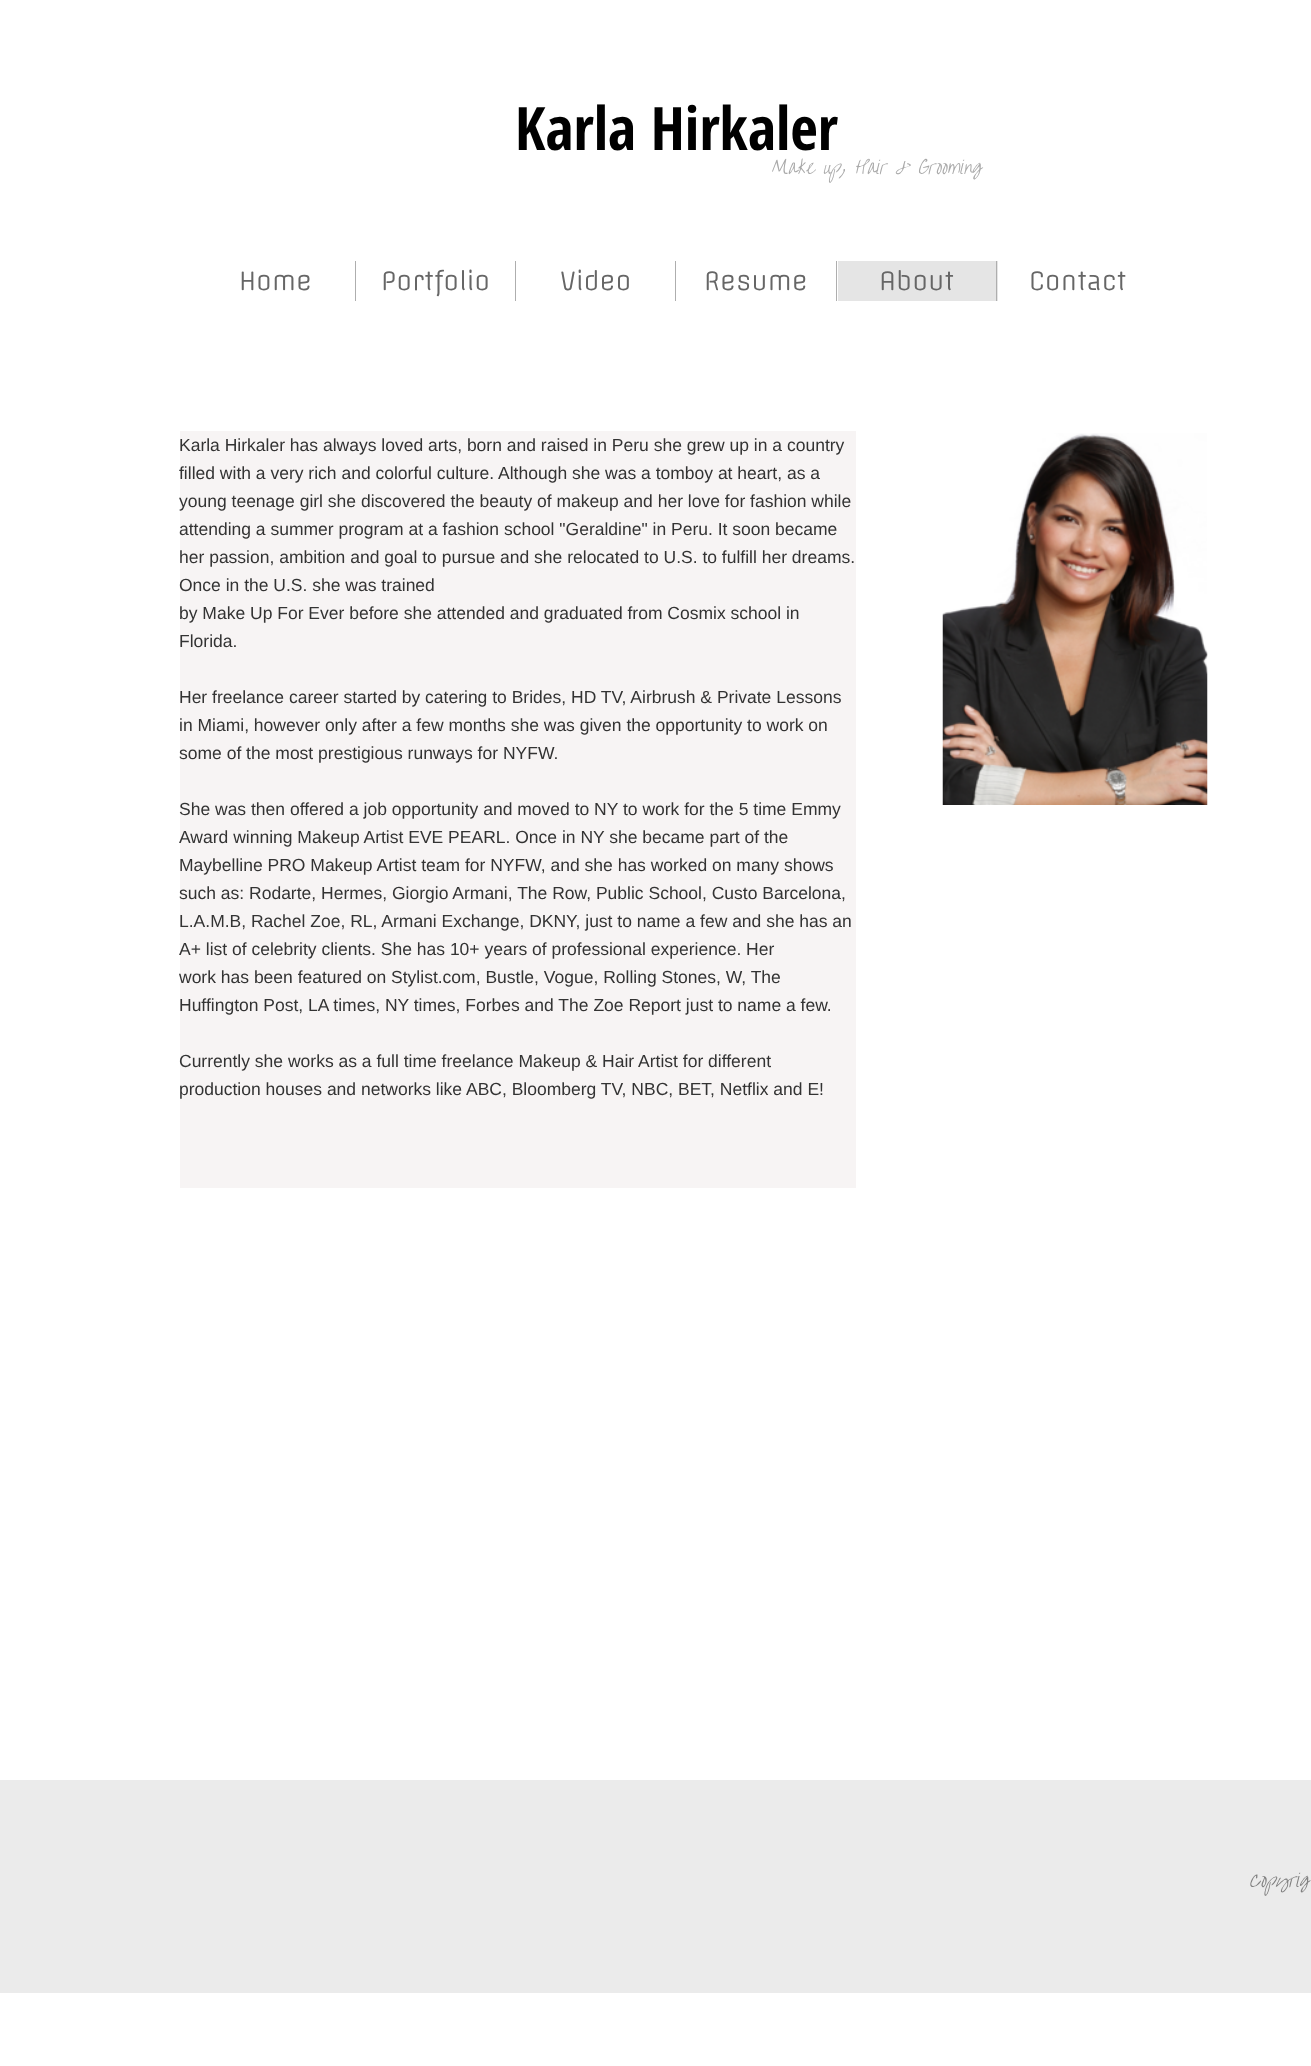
<!DOCTYPE html>
<meta charset="utf-8">
<style>body { margin: 0 } canvas { display: block }</style>
<canvas id="canvas" width="1311" height="2066"></canvas>
<img id="img1" src="img_01.png" hidden>
<script>
window.onload = function () {
	const canvas = document.getElementById("canvas");
	const ctx = canvas.getContext("2d");
	ctx.miterLimit = 4;
	ctx.fontKerning = "normal";
	function txt(s, x, y) {
		ctx.fillText(s, x, y);
	}
	function fill(x, y, w, h) {
		ctx.fillRect(x, y, w, h);
	}
	function img(id, x, y, w, h) {
		ctx.drawImage(document.getElementById(id), x, y, w, h);
	}

	ctx.fillStyle = "#FFFFFF";
	fill(0, 0, 1311, 2066);
	ctx.fillStyle = "#AEAEAE";
	fill(355, 261, 1, 40);
	fill(515, 261, 1, 40);
	fill(675, 261, 1, 40);
	fill(836, 261, 1, 40);
	ctx.fillStyle = "#E5E5E5";
	fill(838, 261, 160, 40);
	ctx.fillStyle = "#AEAEAE";
	fill(996, 261, 1, 40);
	ctx.fillStyle = "#F7F4F4";
	fill(180, 431, 676, 757);
	img("img1", 942, 433, 266, 372);
	ctx.fillStyle = "#EBEBEB";
	fill(0, 1780, 1311, 213);
	ctx.font = "bold 60px Open Sans Condensed";
	ctx.fillStyle = "#000000";
	txt("Karla Hirkaler", 515, 150);
	ctx.font = "italic 17.5px Over the Rainbow";
	ctx.fillStyle = "#A9A9A9";
	txt("Make up, Hair & Grooming", 771, 174);
	ctx.font = "25px Offside";
	ctx.fillStyle = "#666666";
	txt("Home", 239, 290);
	txt("Portfolio", 381, 290);
	txt("Video", 560, 290);
	txt("Resume", 704, 290);
	txt("About", 879, 290);
	txt("Contact", 1029, 290);
	ctx.font = "17.5px Liberation Sans";
	ctx.fillStyle = "#333333";
	txt("Karla Hirkaler has always loved arts, born and raised in Peru she grew up in a country", 179, 451);
	txt("filled with a very rich and colorful culture. Although she was a tomboy at heart, as a", 179, 479);
	txt("young teenage girl she discovered the beauty of makeup and her love for fashion while", 179, 507);
	txt("attending a summer program at a fashion school \"Geraldine\" in Peru. It soon became", 179, 535);
	txt("her passion, ambition and goal to pursue and she relocated to U.S. to fulfill her dreams.", 179, 563);
	txt("Once in the U.S. she was trained", 179, 591);
	txt("by Make Up For Ever before she attended and graduated from Cosmix school in", 179, 619);
	txt("Florida.", 179, 647);
	txt("Her freelance career started by catering to Brides, HD TV, Airbrush & Private Lessons", 179, 703);
	txt("in Miami, however only after a few months she was given the opportunity to work on", 179, 731);
	txt("some of the most prestigious runways for NYFW.", 179, 759);
	txt("She was then offered a job opportunity and moved to NY to work for the 5 time Emmy", 179, 815);
	txt("Award winning Makeup Artist EVE PEARL. Once in NY she became part of the", 179, 843);
	txt("Maybelline PRO Makeup Artist team for NYFW, and she has worked on many shows", 179, 871);
	txt("such as: Rodarte, Hermes, Giorgio Armani, The Row, Public School, Custo Barcelona,", 179, 899);
	txt("L.A.M.B, Rachel Zoe, RL, Armani Exchange, DKNY, just to name a few and she has an", 179, 927);
	txt("A+ list of celebrity clients. She has 10+ years of professional experience. Her", 179, 955);
	txt("work has been featured on Stylist.com, Bustle, Vogue, Rolling Stones, W, The", 179, 983);
	txt("Huffington Post, LA times, NY times, Forbes and The Zoe Report just to name a few.", 179, 1011);
	txt("Currently she works as a full time freelance Makeup & Hair Artist for different", 179, 1067);
	txt("production houses and networks like ABC, Bloomberg TV, NBC, BET, Netflix and E!", 179, 1095);
	ctx.font = "italic 17.5px Over the Rainbow";
	ctx.fillStyle = "#808080";
	txt("Copyrig", 1249, 1887);
};
</script>
